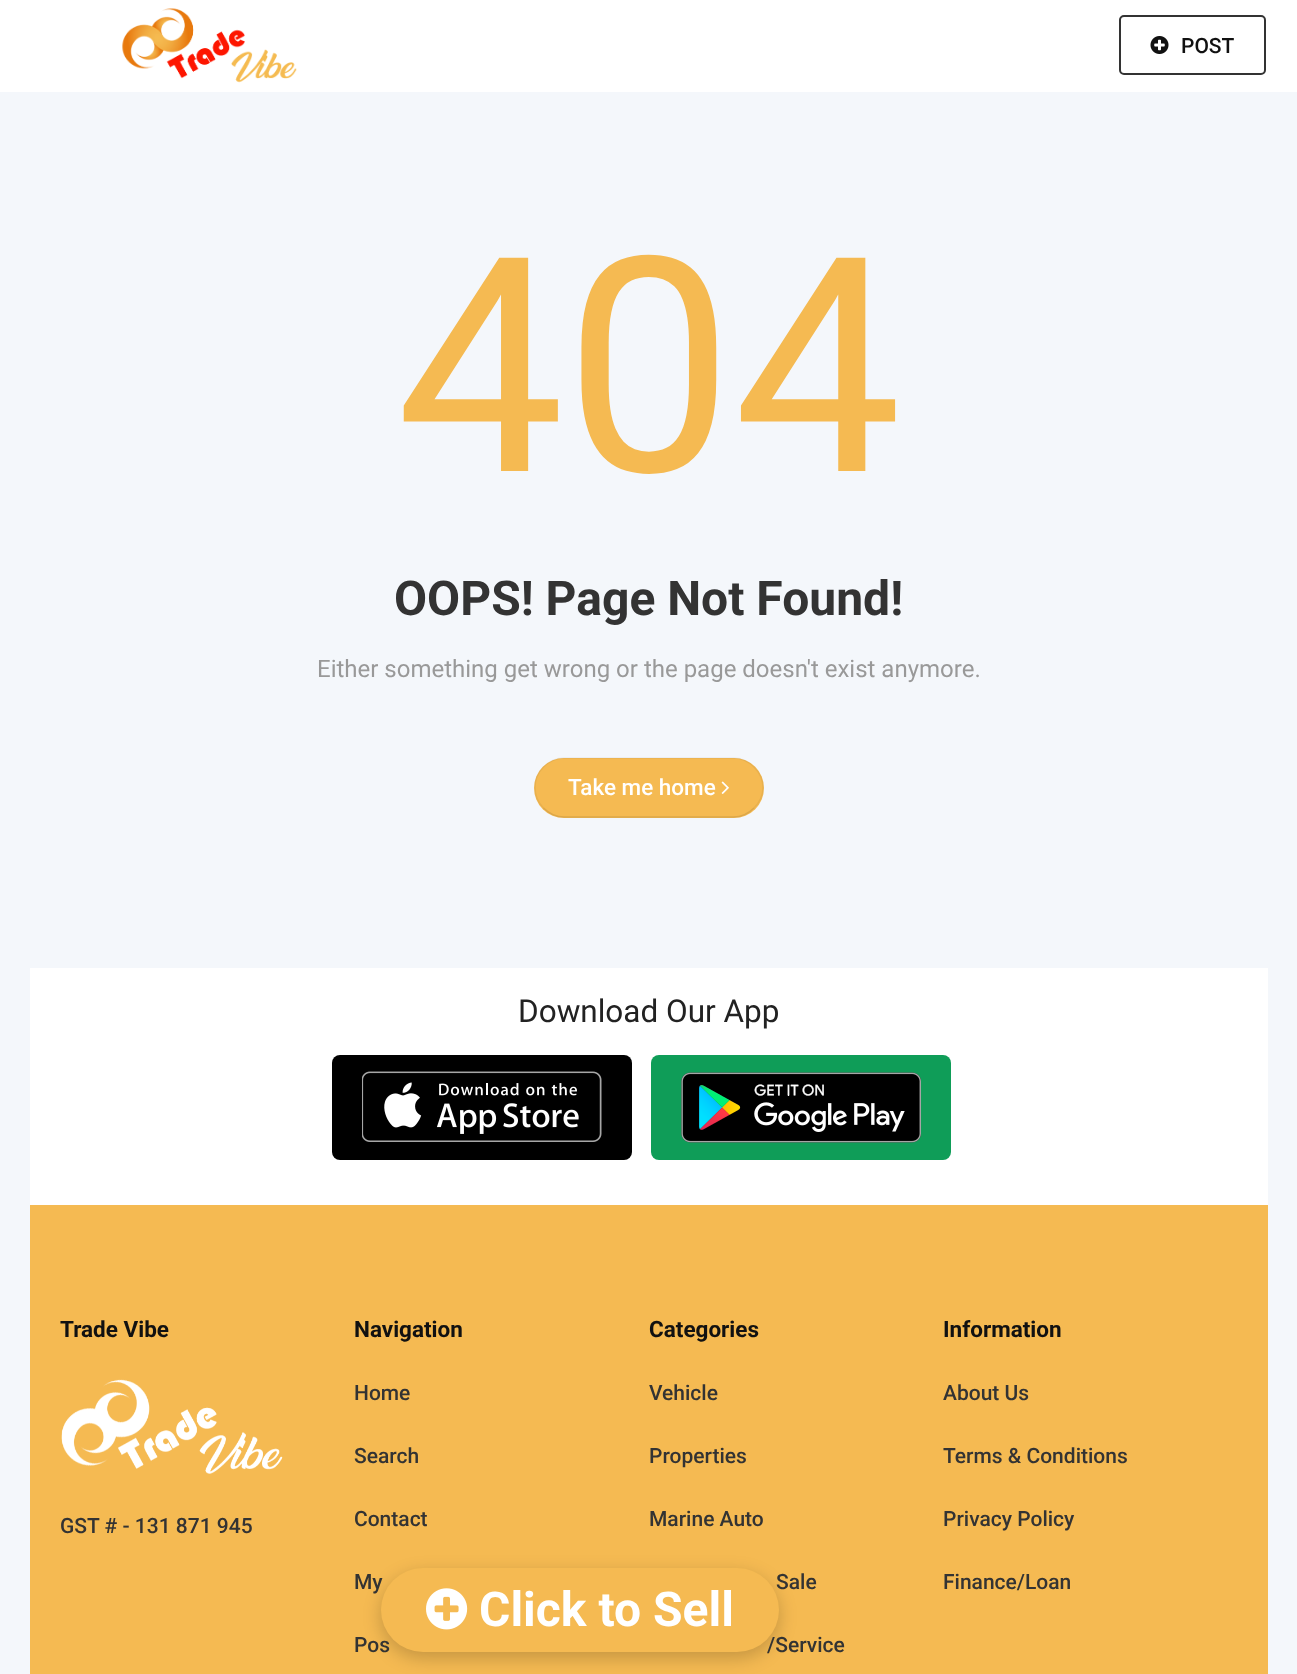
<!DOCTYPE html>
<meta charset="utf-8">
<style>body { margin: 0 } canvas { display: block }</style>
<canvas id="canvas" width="1297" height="1674"></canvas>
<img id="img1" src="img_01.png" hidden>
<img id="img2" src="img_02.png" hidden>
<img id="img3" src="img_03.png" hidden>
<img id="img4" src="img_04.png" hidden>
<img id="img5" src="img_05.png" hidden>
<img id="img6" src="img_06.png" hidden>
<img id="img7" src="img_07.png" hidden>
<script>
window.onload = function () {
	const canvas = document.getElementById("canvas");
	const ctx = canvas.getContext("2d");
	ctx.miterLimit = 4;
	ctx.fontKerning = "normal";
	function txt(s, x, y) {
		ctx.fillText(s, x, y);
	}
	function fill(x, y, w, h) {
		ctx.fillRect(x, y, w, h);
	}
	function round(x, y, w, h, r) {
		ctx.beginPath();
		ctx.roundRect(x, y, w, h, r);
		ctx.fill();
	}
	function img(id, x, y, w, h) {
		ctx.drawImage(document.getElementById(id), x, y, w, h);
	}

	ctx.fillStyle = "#F4F7FB";
	fill(0, 0, 1297, 1674);
	ctx.fillStyle = "#FFFFFF";
	fill(0, 0, 1297, 92);
	img("img1", 122, 8, 175, 75);
	ctx.beginPath();
	ctx.roundRect(1120, 16, 145, 58, 4);
	ctx.strokeStyle = "#333333";
	ctx.lineWidth = 2;
	ctx.stroke();
	img("img2", 1150, 36, 19, 18);
	ctx.fillStyle = "#F5BA52";
	round(534, 758, 230, 60, 30);
	ctx.beginPath();
	ctx.moveTo(754, 808);
	ctx.bezierCurveTo(748.5, 813.5, 741.5, 817, 733.5, 817);
	ctx.lineTo(564, 817);
	ctx.bezierCurveTo(556, 817, 549, 813.5, 543.5, 808);
	ctx.strokeStyle = "rgba(0, 0, 0, 0.1)";
	ctx.lineWidth = 1.5;
	ctx.stroke();
	ctx.beginPath();
	ctx.moveTo(543.5, 808);
	ctx.bezierCurveTo(538, 802.5, 535, 795.5, 535, 787.5);
	ctx.bezierCurveTo(535, 779.5, 538, 772.5, 543.5, 767);
	ctx.bezierCurveTo(549, 761.5, 556, 758, 564, 758);
	ctx.lineTo(733.5, 758);
	ctx.bezierCurveTo(741.5, 758, 748.5, 761.5, 754, 767);
	ctx.bezierCurveTo(759.5, 772.5, 763, 779.5, 763, 787.5);
	ctx.bezierCurveTo(763, 795.5, 759.5, 802.5, 754, 808);
	ctx.strokeStyle = "rgba(0, 0, 0, 0.05)";
	ctx.stroke();
	img("img3", 721, 781, 8, 13);
	ctx.fillStyle = "#FFFFFF";
	fill(30, 968, 1238, 237);
	ctx.fillStyle = "#000000";
	round(332, 1055, 300, 105, 8);
	img("img4", 362, 1071, 240, 71);
	ctx.fillStyle = "#0F9D58";
	round(651, 1055, 300, 105, 8);
	img("img5", 681, 1072, 240, 71);
	ctx.fillStyle = "#F5BA52";
	fill(30, 1205, 1238, 469);
	img("img6", 61, 1379, 222, 95);
	ctx.fillStyle = "rgba(0, 0, 0, 0.2)";
	ctx.filter = "blur(9px)";
	ctx.beginPath();
	ctx.roundRect(381, 1574, 398, 84, 42);
	ctx.fill();
	ctx.filter = "none";
	ctx.font = "500 21px Roboto";
	ctx.fillStyle = "#111111";
	txt("POST", 1181, 53);
	ctx.font = "300px Roboto";
	ctx.fillStyle = "#F5BA52";
	txt("404", 396, 471);
	ctx.font = "bold 48px Roboto";
	ctx.fillStyle = "#333333";
	txt("OOPS! Page Not Found!", 394, 615);
	ctx.font = "24px Roboto";
	ctx.fillStyle = "#999999";
	txt("Either something get wrong or the page doesn't exist anymore.", 317, 677);
	ctx.font = "500 22.5px Roboto";
	ctx.fillStyle = "#FFFFFF";
	txt("Take me home", 568, 795);
	ctx.font = "31.5px Roboto";
	ctx.fillStyle = "#222222";
	txt("Download Our App", 518, 1022);
	ctx.font = "bold 22.5px Roboto";
	ctx.fillStyle = "#111111";
	txt("Trade Vibe", 60, 1337);
	ctx.font = "500 21px Roboto";
	ctx.fillStyle = "#333333";
	txt("GST # - 131 871 945", 60, 1533);
	ctx.font = "bold 22.5px Roboto";
	ctx.fillStyle = "#111111";
	txt("Navigation", 354, 1337);
	ctx.font = "500 21px Roboto";
	ctx.fillStyle = "#333333";
	txt("Home", 354, 1400);
	txt("Search", 354, 1463);
	txt("Contact", 354, 1526);
	txt("My", 354, 1589);
	txt("Pos", 354, 1652);
	ctx.font = "bold 22.5px Roboto";
	ctx.fillStyle = "#111111";
	txt("Categories", 649, 1337);
	ctx.font = "500 21px Roboto";
	ctx.fillStyle = "#333333";
	txt("Vehicle", 649, 1400);
	txt("Properties", 649, 1463);
	txt("Marine Auto", 649, 1526);
	txt("Sale", 776, 1589);
	txt("/Service", 767, 1652);
	ctx.font = "bold 22.5px Roboto";
	ctx.fillStyle = "#111111";
	txt("Information", 943, 1337);
	ctx.font = "500 21px Roboto";
	ctx.fillStyle = "#333333";
	txt("About Us", 943, 1400);
	txt("Terms & Conditions", 943, 1463);
	txt("Privacy Policy", 943, 1526);
	txt("Finance/Loan", 943, 1589);
	ctx.fillStyle = "#F5BA52";
	round(381, 1568, 398, 84, 42);
	img("img7", 426, 1588, 42, 42);
	ctx.font = "bold 48px Roboto";
	ctx.fillStyle = "#FFFFFF";
	txt("Click to Sell", 479, 1626);
};
</script>
